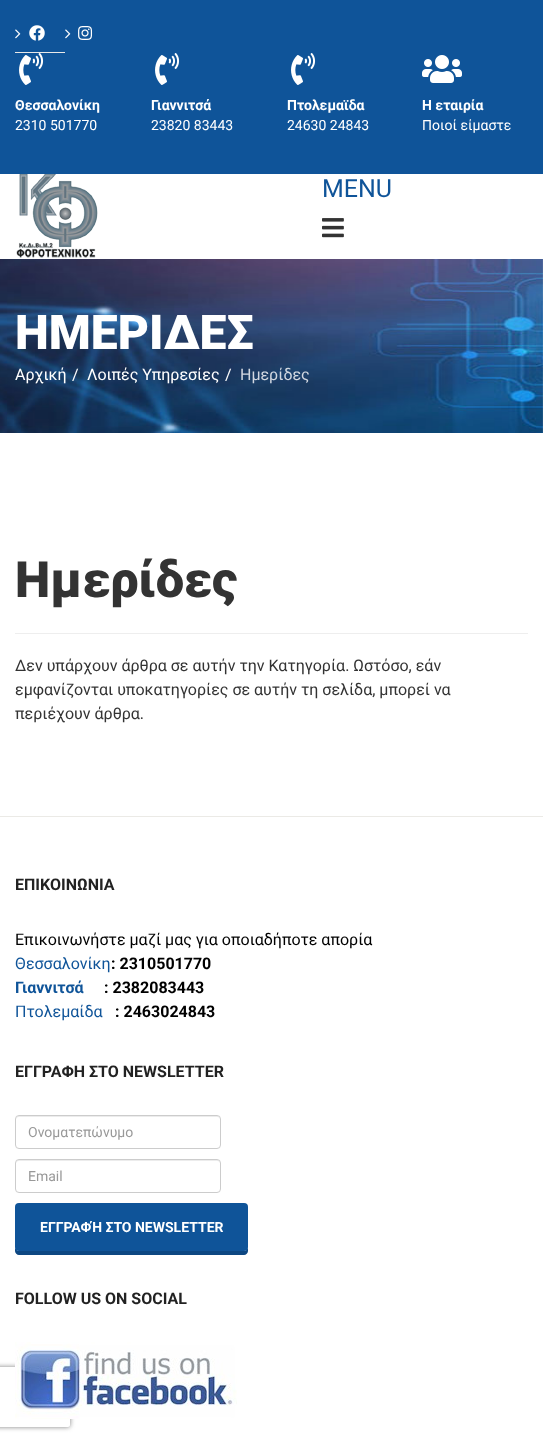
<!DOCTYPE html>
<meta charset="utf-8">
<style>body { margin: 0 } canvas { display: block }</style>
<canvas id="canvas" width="543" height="1441"></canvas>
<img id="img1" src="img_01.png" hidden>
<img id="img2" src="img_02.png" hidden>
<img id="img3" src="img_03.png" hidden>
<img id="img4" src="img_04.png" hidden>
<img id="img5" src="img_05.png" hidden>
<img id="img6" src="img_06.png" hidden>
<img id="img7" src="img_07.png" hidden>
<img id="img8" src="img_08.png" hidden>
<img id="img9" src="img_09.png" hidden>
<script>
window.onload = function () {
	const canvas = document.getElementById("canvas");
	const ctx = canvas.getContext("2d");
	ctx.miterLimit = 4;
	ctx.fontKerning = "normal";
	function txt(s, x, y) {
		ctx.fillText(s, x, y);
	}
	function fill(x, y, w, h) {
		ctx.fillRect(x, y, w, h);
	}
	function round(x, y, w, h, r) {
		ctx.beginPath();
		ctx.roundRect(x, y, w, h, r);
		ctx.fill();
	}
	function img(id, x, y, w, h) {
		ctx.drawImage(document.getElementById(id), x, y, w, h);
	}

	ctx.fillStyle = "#FFFFFF";
	fill(0, 0, 543, 1441);
	ctx.fillStyle = "#0F5499";
	fill(0, 0, 543, 174);
	ctx.fillStyle = "#E8E8E8";
	fill(15, 52, 50, 1);
	img("img1", 15, 29, 6, 10);
	img("img2", 29, 25, 16, 16);
	img("img1", 65, 29, 6, 10);
	img("img3", 78, 26, 15, 14);
	img("img4", 19, 53, 25, 32);
	img("img4", 155, 53, 25, 32);
	img("img4", 291, 53, 25, 32);
	img("img5", 422, 55, 40, 28);
	img("img6", 16, 174, 82, 84);
	img("img7", 322, 218, 22, 20);
	img("img8", 0, 259, 543, 174);
	ctx.fillStyle = "#EEEEEE";
	fill(15, 633, 513, 1);
	ctx.fillStyle = "#EBEAE6";
	fill(0, 816, 543, 1);
	ctx.fillStyle = "#ECECEC";
	ctx.beginPath();
	ctx.moveTo(19, 1117);
	ctx.lineTo(217, 1117);
	ctx.bezierCurveTo(219, 1117, 220, 1118, 220, 1120);
	ctx.bezierCurveTo(220, 1118, 219, 1116, 217, 1116);
	ctx.lineTo(19, 1116);
	ctx.bezierCurveTo(17, 1116, 16, 1118, 16, 1120);
	ctx.bezierCurveTo(16, 1118, 17, 1117, 19, 1117);
	ctx.closePath();
	ctx.fill();
	ctx.beginPath();
	ctx.roundRect(15.5, 1115.5, 205, 33, 3.5);
	ctx.strokeStyle = "#CCCCCC";
	ctx.stroke();
	ctx.beginPath();
	ctx.moveTo(19, 1161);
	ctx.lineTo(217, 1161);
	ctx.bezierCurveTo(219, 1161, 220, 1162, 220, 1164);
	ctx.bezierCurveTo(220, 1162, 219, 1160, 217, 1160);
	ctx.lineTo(19, 1160);
	ctx.bezierCurveTo(17, 1160, 16, 1162, 16, 1164);
	ctx.bezierCurveTo(16, 1162, 17, 1161, 19, 1161);
	ctx.closePath();
	ctx.fill();
	ctx.beginPath();
	ctx.roundRect(15.5, 1159.5, 205, 33, 3.5);
	ctx.stroke();
	ctx.save();
	ctx.beginPath();
	ctx.moveTo(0, 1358);
	ctx.lineTo(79, 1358);
	ctx.lineTo(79, 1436);
	ctx.lineTo(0, 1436);
	ctx.closePath();
	ctx.moveTo(-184, 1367);
	ctx.lineTo(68, 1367);
	ctx.bezierCurveTo(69, 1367, 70, 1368, 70, 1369);
	ctx.lineTo(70, 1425);
	ctx.bezierCurveTo(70, 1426, 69, 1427, 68, 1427);
	ctx.lineTo(-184, 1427);
	ctx.bezierCurveTo(-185, 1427, -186, 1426, -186, 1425);
	ctx.lineTo(-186, 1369);
	ctx.bezierCurveTo(-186, 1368, -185, 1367, -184, 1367);
	ctx.closePath();
	ctx.clip("evenodd");
	ctx.fillStyle = "#808080";
	ctx.filter = "blur(2.5px)";
	ctx.beginPath();
	ctx.roundRect(-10, 1367, 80, 60, 2);
	ctx.fill();
	ctx.filter = "none";
	ctx.restore();
	ctx.fillStyle = "#0D4782";
	ctx.beginPath();
	ctx.moveTo(15, 1247);
	ctx.lineTo(15, 1251);
	ctx.bezierCurveTo(15, 1253, 17, 1255, 19, 1255);
	ctx.lineTo(244, 1255);
	ctx.bezierCurveTo(246, 1255, 248, 1253, 248, 1251);
	ctx.lineTo(248, 1247);
	ctx.bezierCurveTo(248, 1249, 246, 1251, 244, 1251);
	ctx.lineTo(19, 1251);
	ctx.bezierCurveTo(17, 1251, 15, 1249, 15, 1247);
	ctx.closePath();
	ctx.fill();
	ctx.fillStyle = "#0F5499";
	round(15, 1203, 233, 48, 4);
	img("img9", 15, 1342, 222, 77);
	ctx.font = "bold 14px Roboto";
	ctx.fillStyle = "#FFFFFF";
	txt("Θεσσαλονίκη", 15, 110);
	ctx.font = "14px Roboto";
	txt("2310 501770", 15, 130);
	ctx.font = "bold 14px Roboto";
	txt("Γιαννιτσά", 151, 110);
	ctx.font = "14px Roboto";
	txt("23820 83443", 151, 130);
	ctx.font = "bold 14px Roboto";
	txt("Πτολεμαϊδα", 287, 110);
	ctx.font = "14px Roboto";
	txt("24630 24843", 287, 130);
	ctx.font = "bold 14px Roboto";
	txt("Η εταιρία", 422, 110);
	ctx.font = "14px Roboto";
	txt("Ποιοί είμαστε", 422, 130);
	ctx.font = "25px Roboto";
	ctx.fillStyle = "#0F5499";
	txt("MENU", 322, 197);
	ctx.font = "900 48px Roboto";
	ctx.fillStyle = "#FFFFFF";
	txt("ΗΜΕΡΙΔΕΣ", 15, 349);
	ctx.font = "16px Roboto";
	txt("Αρχική", 15, 380);
	txt("/", 72, 380);
	txt("Λοιπές Υπηρεσίες", 87, 380);
	txt("/", 225, 380);
	ctx.fillStyle = "#D2D8E1";
	txt("Ημερίδες", 240, 380);
	ctx.font = "900 50px Roboto";
	ctx.fillStyle = "#333333";
	txt("Ημερίδες", 15, 597);
	ctx.font = "16px Roboto";
	txt("Δεν υπάρχουν άρθρα σε αυτήν την Κατηγορία. Ωστόσο, εάν", 15, 671);
	txt("εμφανίζονται υποκατηγορίες σε αυτήν τη σελίδα, μπορεί να", 15, 695);
	txt("περιέχουν άρθρα.", 15, 719);
	ctx.font = "bold 16px Roboto";
	ctx.fillStyle = "#222222";
	txt("ΕΠΙΚΟΙΝΩΝΙΑ", 15, 890);
	ctx.font = "16px Roboto";
	ctx.fillStyle = "#000000";
	txt("Επικοινωνήστε μαζί μας για οποιαδήποτε απορία", 15, 945);
	ctx.fillStyle = "#0F5499";
	txt("Θεσσαλονίκη", 15, 969);
	ctx.font = "bold 16px Roboto";
	ctx.fillStyle = "#000000";
	txt(": 2310501770", 111, 969);
	ctx.fillStyle = "#0F5499";
	txt("Γιαννιτσά", 15, 993);
	ctx.fillStyle = "#000000";
	txt(": 2382083443", 104, 993);
	ctx.font = "16px Roboto";
	ctx.fillStyle = "#0F5499";
	txt("Πτολεμαίδα", 15, 1017);
	ctx.font = "bold 16px Roboto";
	ctx.fillStyle = "#000000";
	txt(": 2463024843", 115, 1017);
	ctx.fillStyle = "#222222";
	txt("ΕΓΓΡΑΦΗ ΣΤΟ NEWSLETTER", 15, 1077);
	ctx.font = "14px Roboto";
	ctx.fillStyle = "#999999";
	txt("Ονοματεπώνυμο", 28, 1137);
	txt("Email", 28, 1181);
	ctx.font = "bold 14px Roboto";
	ctx.fillStyle = "#FFFFFF";
	txt("ΕΓΓΡΑΦΉ ΣΤΟ NEWSLETTER", 40, 1232);
	ctx.font = "bold 16px Roboto";
	ctx.fillStyle = "#222222";
	txt("FOLLOW US ON SOCIAL", 15, 1304);
};
</script>
